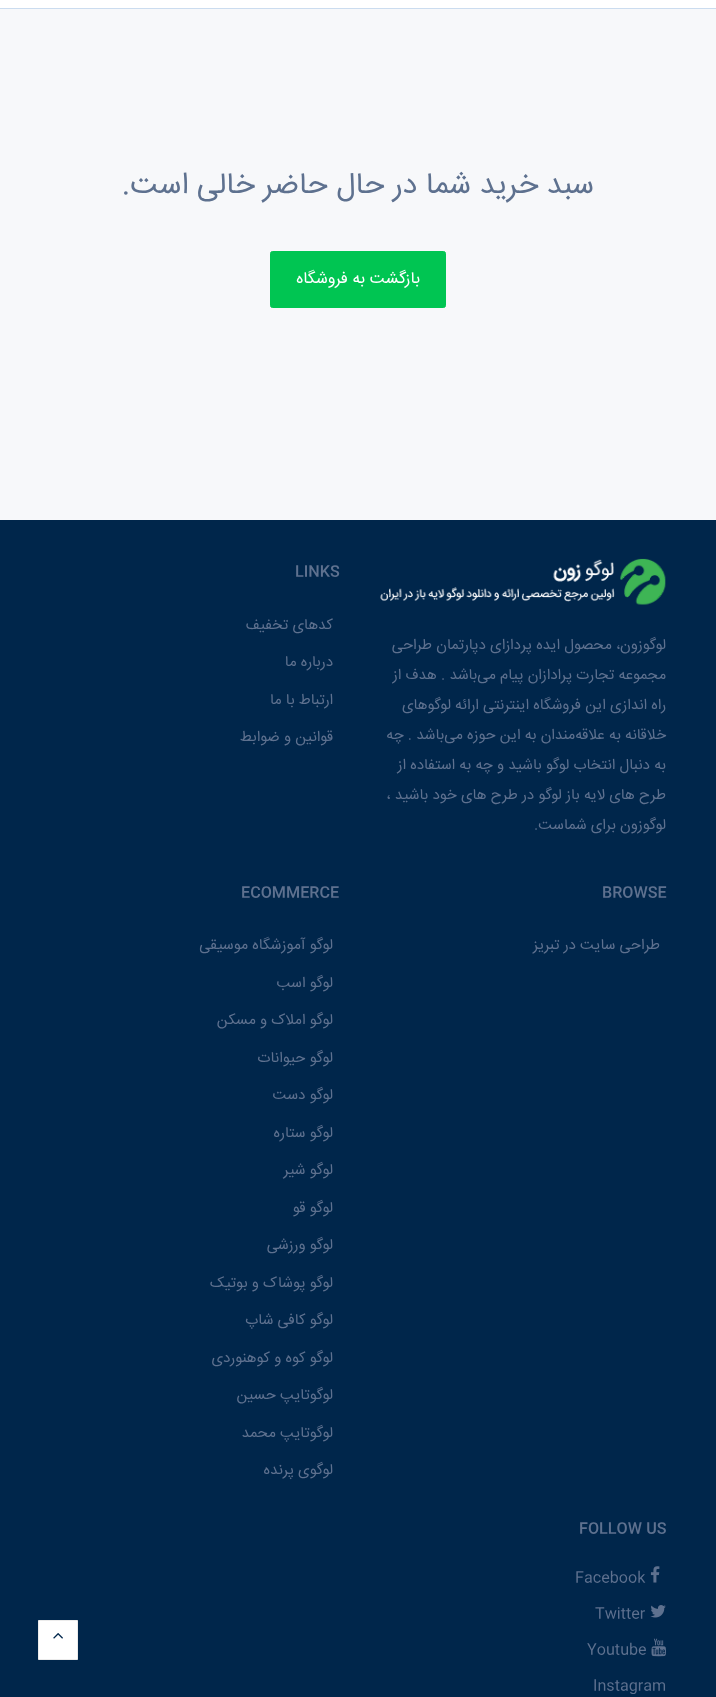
<!DOCTYPE html>
<meta charset="utf-8">
<style>body { margin: 0 } canvas { display: block }</style>
<canvas id="canvas" width="716" height="1697"></canvas>
<img id="img1" src="img_01.png" hidden>
<img id="img2" src="img_02.png" hidden>
<img id="img3" src="img_03.png" hidden>
<img id="img4" src="img_04.png" hidden>
<img id="img5" src="img_05.png" hidden>
<script>
window.onload = function () {
	const canvas = document.getElementById("canvas");
	const ctx = canvas.getContext("2d");
	ctx.miterLimit = 4;
	ctx.fontKerning = "normal";
	function txt(s, x, y) {
		ctx.fillText(s, x, y);
	}
	function fill(x, y, w, h) {
		ctx.fillRect(x, y, w, h);
	}
	function img(id, x, y, w, h) {
		ctx.drawImage(document.getElementById(id), x, y, w, h);
	}

	ctx.fillStyle = "#F7F8FA";
	fill(0, 0, 716, 1697);
	ctx.fillStyle = "#FFFFFF";
	fill(0, 0, 716, 8);
	ctx.fillStyle = "#CBDCEF";
	fill(0, 8, 716, 1);
	ctx.fillStyle = "#00C552";
	ctx.beginPath();
	ctx.roundRect(270.5, 251.5, 175, 56, 2);
	ctx.fill();
	ctx.strokeStyle = "#00C552";
	ctx.stroke();
	ctx.fillStyle = "#00264B";
	fill(0, 520, 716, 1177);
	img("img1", 380, 558, 286, 47);
	img("img2", 650, 1566, 10, 17);
	img("img3", 650, 1605, 16, 13);
	img("img4", 651, 1638, 15, 19);
	ctx.fillStyle = "#FFFFFF";
	ctx.beginPath();
	ctx.rect(38.5, 1620.5, 39, 39);
	ctx.fill();
	ctx.strokeStyle = "#EBEBEB";
	ctx.stroke();
	img("img5", 53, 1633, 10, 6);
	ctx.direction = "rtl";
	ctx.font = "30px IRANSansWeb";
	ctx.fillStyle = "#5E718F";
	txt("سبد خرید شما در حال حاضر خالی است.", 594, 193);
	ctx.font = "16.25px IRANSansWeb";
	ctx.fillStyle = "#FFFFFF";
	txt("بازگشت به فروشگاه", 420, 283);
	ctx.font = "15px IRANSansWeb";
	ctx.fillStyle = "#5E718F";
	txt("لوگوزون، محصول ایده پردازای دپارتمان طراحی", 666, 649);
	txt("مجموعه تجارت پرادازان پیام می‌باشد . هدف از", 666, 679);
	txt("راه اندازی این فروشگاه اینترنتی ارائه لوگوهای", 666, 709);
	txt("خلاقانه به علاقه‌مندان به این حوزه می‌باشد . چه", 666, 739);
	txt("به دنبال انتخاب لوگو باشید و چه به استفاده از", 666, 769);
	txt("طرح های لایه باز لوگو در طرح های خود باشید ،", 666, 799);
	txt("لوگوزون برای شماست.", 666, 829);
	ctx.direction = "ltr";
	ctx.font = "500 15px IRANSansWeb";
	txt("LINKS", 295, 576);
	ctx.direction = "rtl";
	ctx.font = "15px IRANSansWeb";
	txt("کدهای تخفیف", 333, 629);
	txt("درباره ما", 333, 666);
	txt("ارتباط با ما", 333, 704);
	txt("قوانین و ضوابط", 333, 741);
	ctx.direction = "ltr";
	ctx.font = "500 15px IRANSansWeb";
	txt("BROWSE", 602, 897);
	ctx.direction = "rtl";
	ctx.font = "15px IRANSansWeb";
	txt("طراحی سایت در تبریز", 660, 949);
	ctx.direction = "ltr";
	ctx.font = "500 15px IRANSansWeb";
	txt("ECOMMERCE", 241, 897);
	ctx.direction = "rtl";
	ctx.font = "15px IRANSansWeb";
	txt("لوگو آموزشگاه موسیقی", 333, 949);
	txt("لوگو اسب", 333, 987);
	txt("لوگو املاک و مسکن", 333, 1024);
	txt("لوگو حیوانات", 333, 1062);
	txt("لوگو دست", 333, 1099);
	txt("لوگو ستاره", 333, 1137);
	txt("لوگو شیر", 333, 1174);
	txt("لوگو قو", 333, 1212);
	txt("لوگو ورزشی", 333, 1249);
	txt("لوگو پوشاک و بوتیک", 333, 1287);
	txt("لوگو کافی شاپ", 333, 1324);
	txt("لوگو کوه و کوهنوردی", 333, 1362);
	txt("لوگوتایپ حسین", 333, 1399);
	txt("لوگوتایپ محمد", 333, 1437);
	txt("لوگوی پرنده", 333, 1474);
	ctx.direction = "ltr";
	ctx.font = "500 15px IRANSansWeb";
	txt("FOLLOW US", 579, 1533);
	ctx.font = "15px IRANSansWeb";
	txt("Facebook", 575, 1582);
	txt("Twitter", 595, 1618);
	txt("Youtube", 587, 1654);
	txt("Instagram", 593, 1690);
};
</script>
